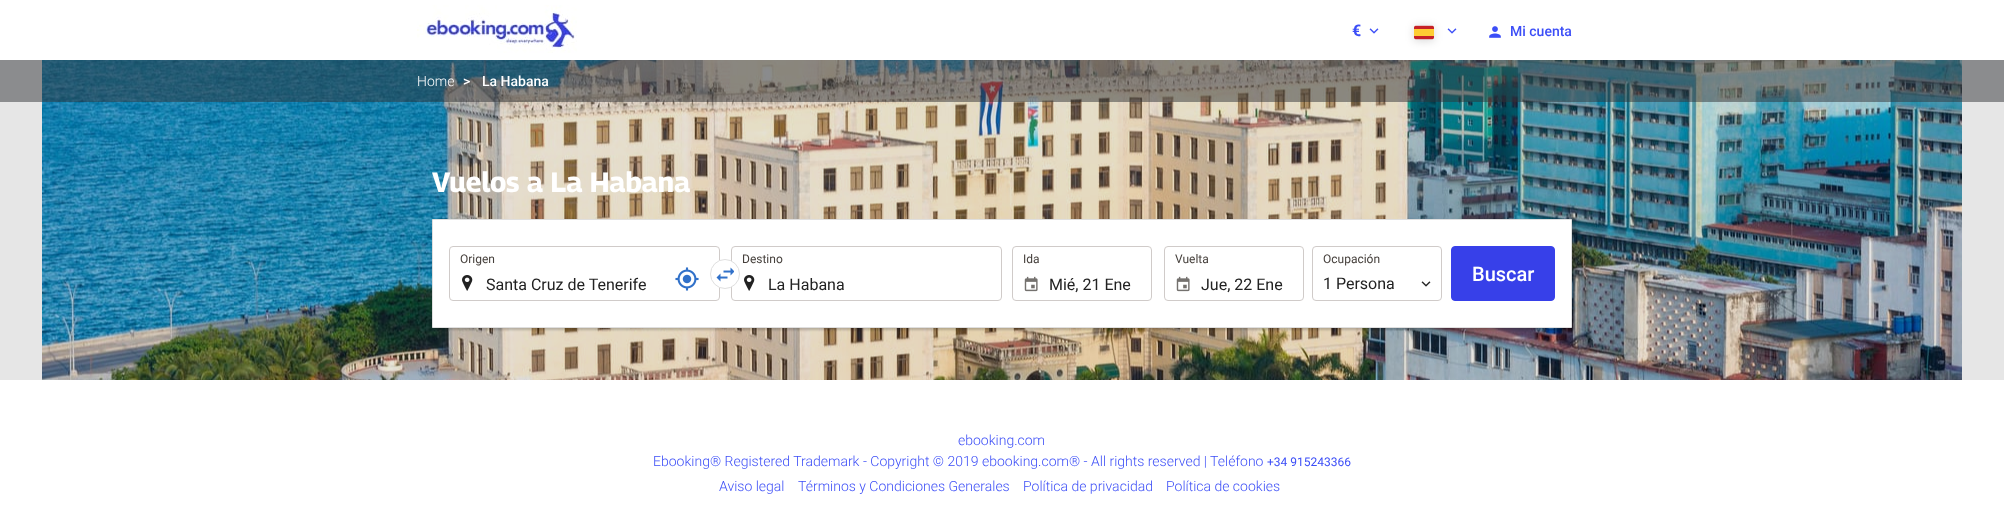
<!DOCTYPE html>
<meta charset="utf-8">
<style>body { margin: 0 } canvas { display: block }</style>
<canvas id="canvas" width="2004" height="509"></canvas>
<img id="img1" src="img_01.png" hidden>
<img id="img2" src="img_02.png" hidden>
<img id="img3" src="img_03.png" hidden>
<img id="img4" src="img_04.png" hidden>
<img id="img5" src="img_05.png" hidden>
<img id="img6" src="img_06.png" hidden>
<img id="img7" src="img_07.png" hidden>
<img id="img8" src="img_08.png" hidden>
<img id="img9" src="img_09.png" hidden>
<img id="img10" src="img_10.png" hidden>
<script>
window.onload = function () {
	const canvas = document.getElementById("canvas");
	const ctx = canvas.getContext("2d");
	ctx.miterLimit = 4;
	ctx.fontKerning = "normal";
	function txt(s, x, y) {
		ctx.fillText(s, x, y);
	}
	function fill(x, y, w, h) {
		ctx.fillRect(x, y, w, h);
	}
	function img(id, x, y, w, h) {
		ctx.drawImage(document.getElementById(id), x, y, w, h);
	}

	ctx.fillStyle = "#FFFFFF";
	fill(0, 0, 2004, 509);
	ctx.fillStyle = "#E6E6E6";
	fill(0, 60, 2004, 320);
	img("img1", 417, 5, 160, 48);
	img("img2", 1369, 28, 10, 6);
	ctx.fillStyle = "rgba(0, 0, 0, 0.15)";
	ctx.filter = "blur(4px)";
	ctx.beginPath();
	ctx.rect(1414, 26, 20, 15);
	ctx.fill();
	ctx.filter = "none";
	img("img3", 1414, 25, 20, 15);
	img("img2", 1447, 28, 10, 6);
	img("img4", 1489, 26, 12, 12);
	img("img5", 42, 60, 1920, 320);
	ctx.fillStyle = "rgba(48, 50, 53, 0.5)";
	fill(0, 60, 2004, 42);
	ctx.fillStyle = "rgba(0, 0, 0, 0.2)";
	ctx.filter = "blur(1px)";
	ctx.beginPath();
	ctx.rect(434, 221, 1140, 109);
	ctx.fill();
	ctx.filter = "none";
	ctx.fillStyle = "#FFFFFF";
	ctx.beginPath();
	ctx.rect(432.5, 219.5, 1139, 108);
	ctx.fill();
	ctx.strokeStyle = "#DFDFDF";
	ctx.stroke();
	img("img6", 462, 275, 11, 16);
	ctx.beginPath();
	ctx.roundRect(449.5, 246.5, 270, 54, 3.5);
	ctx.strokeStyle = "#D0CBC9";
	ctx.stroke();
	img("img7", 675, 267, 24, 24);
	img("img6", 744, 275, 11, 16);
	ctx.beginPath();
	ctx.roundRect(731.5, 246.5, 270, 54, 3.5);
	ctx.stroke();
	ctx.beginPath();
	ctx.arc(725, 274, 14.5, 0, Math.PI * 2);
	ctx.fill();
	ctx.strokeStyle = "#DFDFDF";
	ctx.stroke();
	img("img8", 716, 267, 18, 15);
	img("img9", 1024, 276, 14, 16);
	ctx.beginPath();
	ctx.roundRect(1012.5, 246.5, 139, 54, 3.5);
	ctx.strokeStyle = "#D0CBC9";
	ctx.stroke();
	img("img9", 1176, 276, 14, 16);
	ctx.beginPath();
	ctx.roundRect(1164.5, 246.5, 139, 54, 3.5);
	ctx.stroke();
	ctx.beginPath();
	ctx.roundRect(1312.5, 246.5, 129, 54, 3.5);
	ctx.stroke();
	img("img10", 1421, 281, 10, 6);
	ctx.fillStyle = "#3740E9";
	ctx.beginPath();
	ctx.roundRect(1451.5, 246.5, 103, 54, 3.5);
	ctx.fill();
	ctx.strokeStyle = "#3740E9";
	ctx.stroke();
	ctx.font = "bold 16px Roboto";
	ctx.fillStyle = "#3C4EF7";
	txt("€", 1352, 36);
	ctx.font = "500 14px Roboto";
	txt("Mi cuenta", 1510, 36);
	ctx.font = "300 14px Roboto";
	ctx.fillStyle = "#FFFFFF";
	txt("Home", 417, 86);
	ctx.font = "500 14px Roboto";
	txt(">", 463, 86);
	txt("La Habana", 482, 86);
	ctx.font = "bold 28px Georama";
	txt("Vuelos a La Habana", 432, 192);
	ctx.font = "12px Roboto";
	ctx.fillStyle = "#46403C";
	txt("Origen", 460, 263);
	ctx.font = "16px Roboto";
	ctx.fillStyle = "#222222";
	txt("Santa Cruz de Tenerife", 486, 290);
	ctx.font = "12px Roboto";
	ctx.fillStyle = "#46403C";
	txt("Destino", 742, 263);
	ctx.font = "16px Roboto";
	ctx.fillStyle = "#222222";
	txt("La Habana", 768, 290);
	ctx.font = "12px Roboto";
	ctx.fillStyle = "#46403C";
	txt("Ida", 1023, 263);
	ctx.font = "16px Roboto";
	ctx.fillStyle = "#222222";
	txt("Mié, 21 Ene", 1049, 290);
	ctx.font = "12px Roboto";
	ctx.fillStyle = "#46403C";
	txt("Vuelta", 1175, 263);
	ctx.font = "16px Roboto";
	ctx.fillStyle = "#222222";
	txt("Jue, 22 Ene", 1201, 290);
	ctx.font = "12px Roboto";
	ctx.fillStyle = "#46403C";
	txt("Ocupación", 1323, 263);
	ctx.font = "16px Roboto";
	ctx.fillStyle = "#222222";
	txt("1 Persona", 1323, 289);
	ctx.font = "500 20px Roboto";
	ctx.fillStyle = "#FFFFFF";
	txt("Buscar", 1472, 281);
	ctx.font = "300 14px Roboto";
	ctx.fillStyle = "#3C4EF7";
	txt("ebooking.com", 958, 445);
	txt("Ebooking® Registered Trademark - Copyright © 2019 ebooking.com® - All rights reserved | Teléfono", 653, 466);
	ctx.font = "12px Roboto";
	txt("+34 915243366", 1267, 466);
	ctx.font = "300 14px Roboto";
	txt("Aviso legal", 719, 491);
	txt("Términos y Condiciones Generales", 798, 491);
	txt("Política de privacidad", 1023, 491);
	txt("Política de cookies", 1166, 491);
};
</script>
